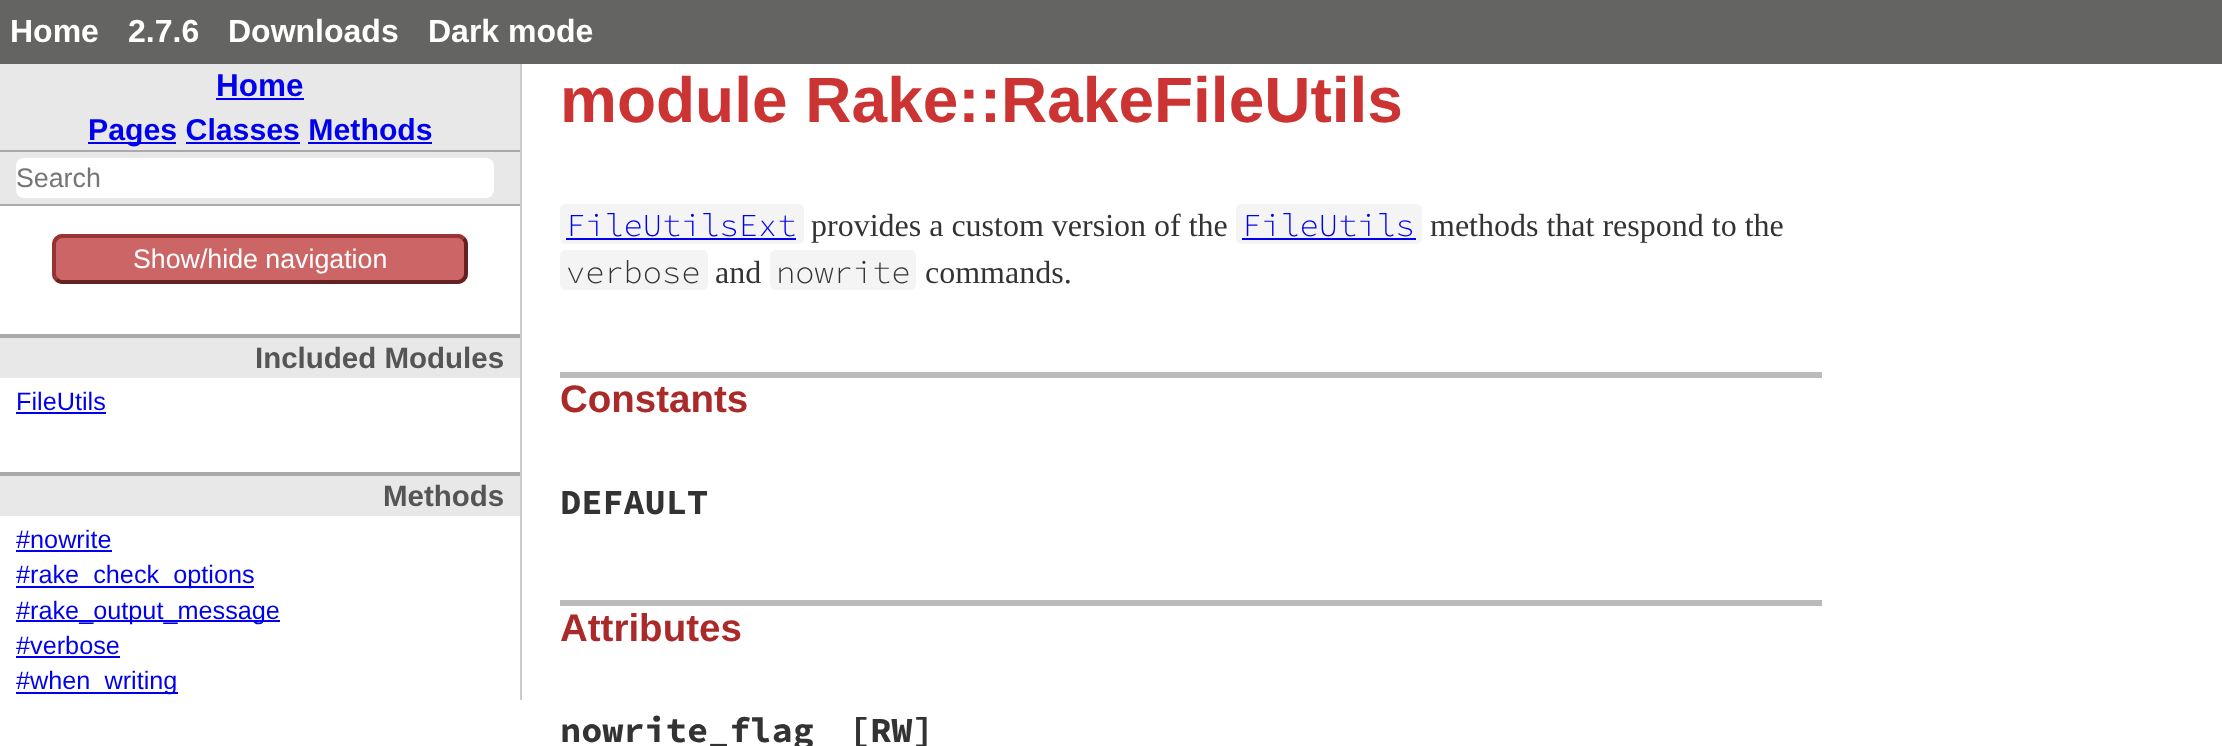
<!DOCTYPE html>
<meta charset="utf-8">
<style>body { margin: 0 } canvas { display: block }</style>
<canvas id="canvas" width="2222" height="746"></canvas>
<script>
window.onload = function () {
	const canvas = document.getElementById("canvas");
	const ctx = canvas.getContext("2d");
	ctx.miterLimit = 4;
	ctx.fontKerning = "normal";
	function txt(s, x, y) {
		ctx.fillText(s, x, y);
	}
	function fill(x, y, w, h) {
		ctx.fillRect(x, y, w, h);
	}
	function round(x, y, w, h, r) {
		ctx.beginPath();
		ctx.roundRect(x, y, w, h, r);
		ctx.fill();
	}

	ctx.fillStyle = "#FFFFFF";
	fill(0, 0, 2222, 746);
	ctx.fillStyle = "#646462";
	fill(0, 0, 2222, 64);
	ctx.fillStyle = "#CCCCCC";
	fill(520, 64, 2, 636);
	ctx.fillStyle = "#E8E8E8";
	fill(0, 64, 520, 86);
	ctx.fillStyle = "#0000EE";
	fill(216, 98, 88, 2);
	fill(88, 142, 88, 2);
	fill(186, 142, 114, 2);
	fill(308, 142, 124, 2);
	ctx.fillStyle = "#E8E8E8";
	fill(0, 152, 520, 52);
	ctx.fillStyle = "#AAAAAA";
	fill(0, 150, 520, 2);
	fill(0, 204, 520, 2);
	ctx.fillStyle = "#FFFFFF";
	round(16, 158, 478, 40, 8);
	ctx.fillStyle = "#CC6666";
	round(52, 234, 416, 50, 10);
	ctx.beginPath();
	ctx.moveTo(463.5, 238.5);
	ctx.bezierCurveTo(465, 240, 466, 242, 466, 244);
	ctx.lineTo(466, 274);
	ctx.bezierCurveTo(466, 276, 465, 278, 463.5, 279.5);
	ctx.bezierCurveTo(462, 281, 460, 282, 458, 282);
	ctx.lineTo(62, 282);
	ctx.bezierCurveTo(60, 282, 58, 281, 56.5, 279.5);
	ctx.strokeStyle = "#662222";
	ctx.lineWidth = 4;
	ctx.stroke();
	ctx.beginPath();
	ctx.moveTo(56.5, 279.5);
	ctx.bezierCurveTo(55, 278, 54, 276, 54, 274);
	ctx.lineTo(54, 244);
	ctx.bezierCurveTo(54, 242, 55, 240, 56.5, 238.5);
	ctx.bezierCurveTo(58, 237, 60, 236, 62, 236);
	ctx.lineTo(458, 236);
	ctx.bezierCurveTo(460, 236, 462, 237, 463.5, 238.5);
	ctx.strokeStyle = "#993333";
	ctx.stroke();
	ctx.fillStyle = "#AAAAAA";
	fill(0, 334, 520, 4);
	ctx.fillStyle = "#E8E8E8";
	fill(0, 338, 520, 40);
	ctx.fillStyle = "#0000EE";
	fill(16, 412, 90, 2);
	ctx.fillStyle = "#AAAAAA";
	fill(0, 472, 520, 4);
	ctx.fillStyle = "#E8E8E8";
	fill(0, 476, 520, 40);
	ctx.fillStyle = "#0000EE";
	fill(16, 550, 96, 2);
	fill(16, 586, 238, 2);
	fill(16, 620, 264, 2);
	fill(16, 656, 104, 2);
	fill(16, 692, 162, 2);
	ctx.fillStyle = "#F4F4F4";
	round(560, 204, 244, 40, 6);
	ctx.fillStyle = "#0000EE";
	fill(566, 238, 230, 2);
	ctx.fillStyle = "#F4F4F4";
	round(1236, 204, 186, 40, 6);
	ctx.fillStyle = "#0000EE";
	fill(1242, 238, 174, 2);
	ctx.fillStyle = "#F4F4F4";
	round(560, 250, 148, 40, 6);
	round(770, 250, 146, 40, 6);
	ctx.fillStyle = "#BBBBBB";
	fill(560, 372, 1262, 6);
	fill(560, 600, 1262, 6);
	ctx.font = "bold 32px Liberation Sans";
	ctx.fillStyle = "#FFFFFF";
	txt("Home", 10, 42);
	txt("2.7.6", 128, 42);
	txt("Downloads", 228, 42);
	txt("Dark mode", 428, 42);
	ctx.font = "bold 31.5px Liberation Sans";
	ctx.fillStyle = "#0000EE";
	txt("Home", 216, 96);
	ctx.font = "bold 30.25px Liberation Sans";
	txt("Pages Classes Methods", 88, 140);
	ctx.font = "26.75px Liberation Sans";
	ctx.fillStyle = "#757575";
	txt("Search", 16, 187);
	ctx.fillStyle = "#FFFFFF";
	txt("Show/hide navigation", 133, 268);
	ctx.font = "bold 29.5px Liberation Sans";
	ctx.fillStyle = "#555555";
	txt("Included Modules", 255, 368);
	ctx.font = "25.25px Liberation Sans";
	ctx.fillStyle = "#0000EE";
	txt("FileUtils", 16, 410);
	ctx.font = "bold 29.5px Liberation Sans";
	ctx.fillStyle = "#555555";
	txt("Methods", 383, 506);
	ctx.font = "25.25px Liberation Sans";
	ctx.fillStyle = "#0000EE";
	txt("#nowrite", 16, 548);
	txt("#rake_check_options", 16, 583);
	txt("#rake_output_message", 16, 619);
	txt("#verbose", 16, 654);
	txt("#when_writing", 16, 689);
	ctx.font = "bold 64px Liberation Sans";
	ctx.fillStyle = "#CC3333";
	txt("module Rake::RakeFileUtils", 560, 122);
	ctx.font = "300 32px Source Code Pro";
	ctx.fillStyle = "#0000EE";
	txt("FileUtilsExt", 566, 236);
	ctx.font = "32px Liberation Serif";
	ctx.fillStyle = "#333333";
	txt("provides a custom version of the", 811, 236);
	ctx.font = "300 32px Source Code Pro";
	ctx.fillStyle = "#0000EE";
	txt("FileUtils", 1242, 236);
	ctx.font = "32px Liberation Serif";
	ctx.fillStyle = "#333333";
	txt("methods that respond to the", 1430, 236);
	ctx.font = "300 32px Source Code Pro";
	txt("verbose", 566, 283);
	ctx.font = "32px Liberation Serif";
	txt("and", 715, 283);
	ctx.font = "300 32px Source Code Pro";
	txt("nowrite", 776, 283);
	ctx.font = "32px Liberation Serif";
	txt("commands.", 925, 283);
	ctx.font = "bold 38.5px Liberation Sans";
	ctx.fillStyle = "#AA2929";
	txt("Constants", 560, 412);
	ctx.font = "bold 35.25px Source Code Pro";
	ctx.fillStyle = "#333333";
	txt("DEFAULT", 560, 514);
	ctx.font = "bold 38.5px Liberation Sans";
	ctx.fillStyle = "#AA2929";
	txt("Attributes", 560, 641);
	ctx.font = "bold 35.25px Source Code Pro";
	ctx.fillStyle = "#333333";
	txt("nowrite_flag", 560, 742);
	txt("[RW]", 849, 742);
};
</script>
